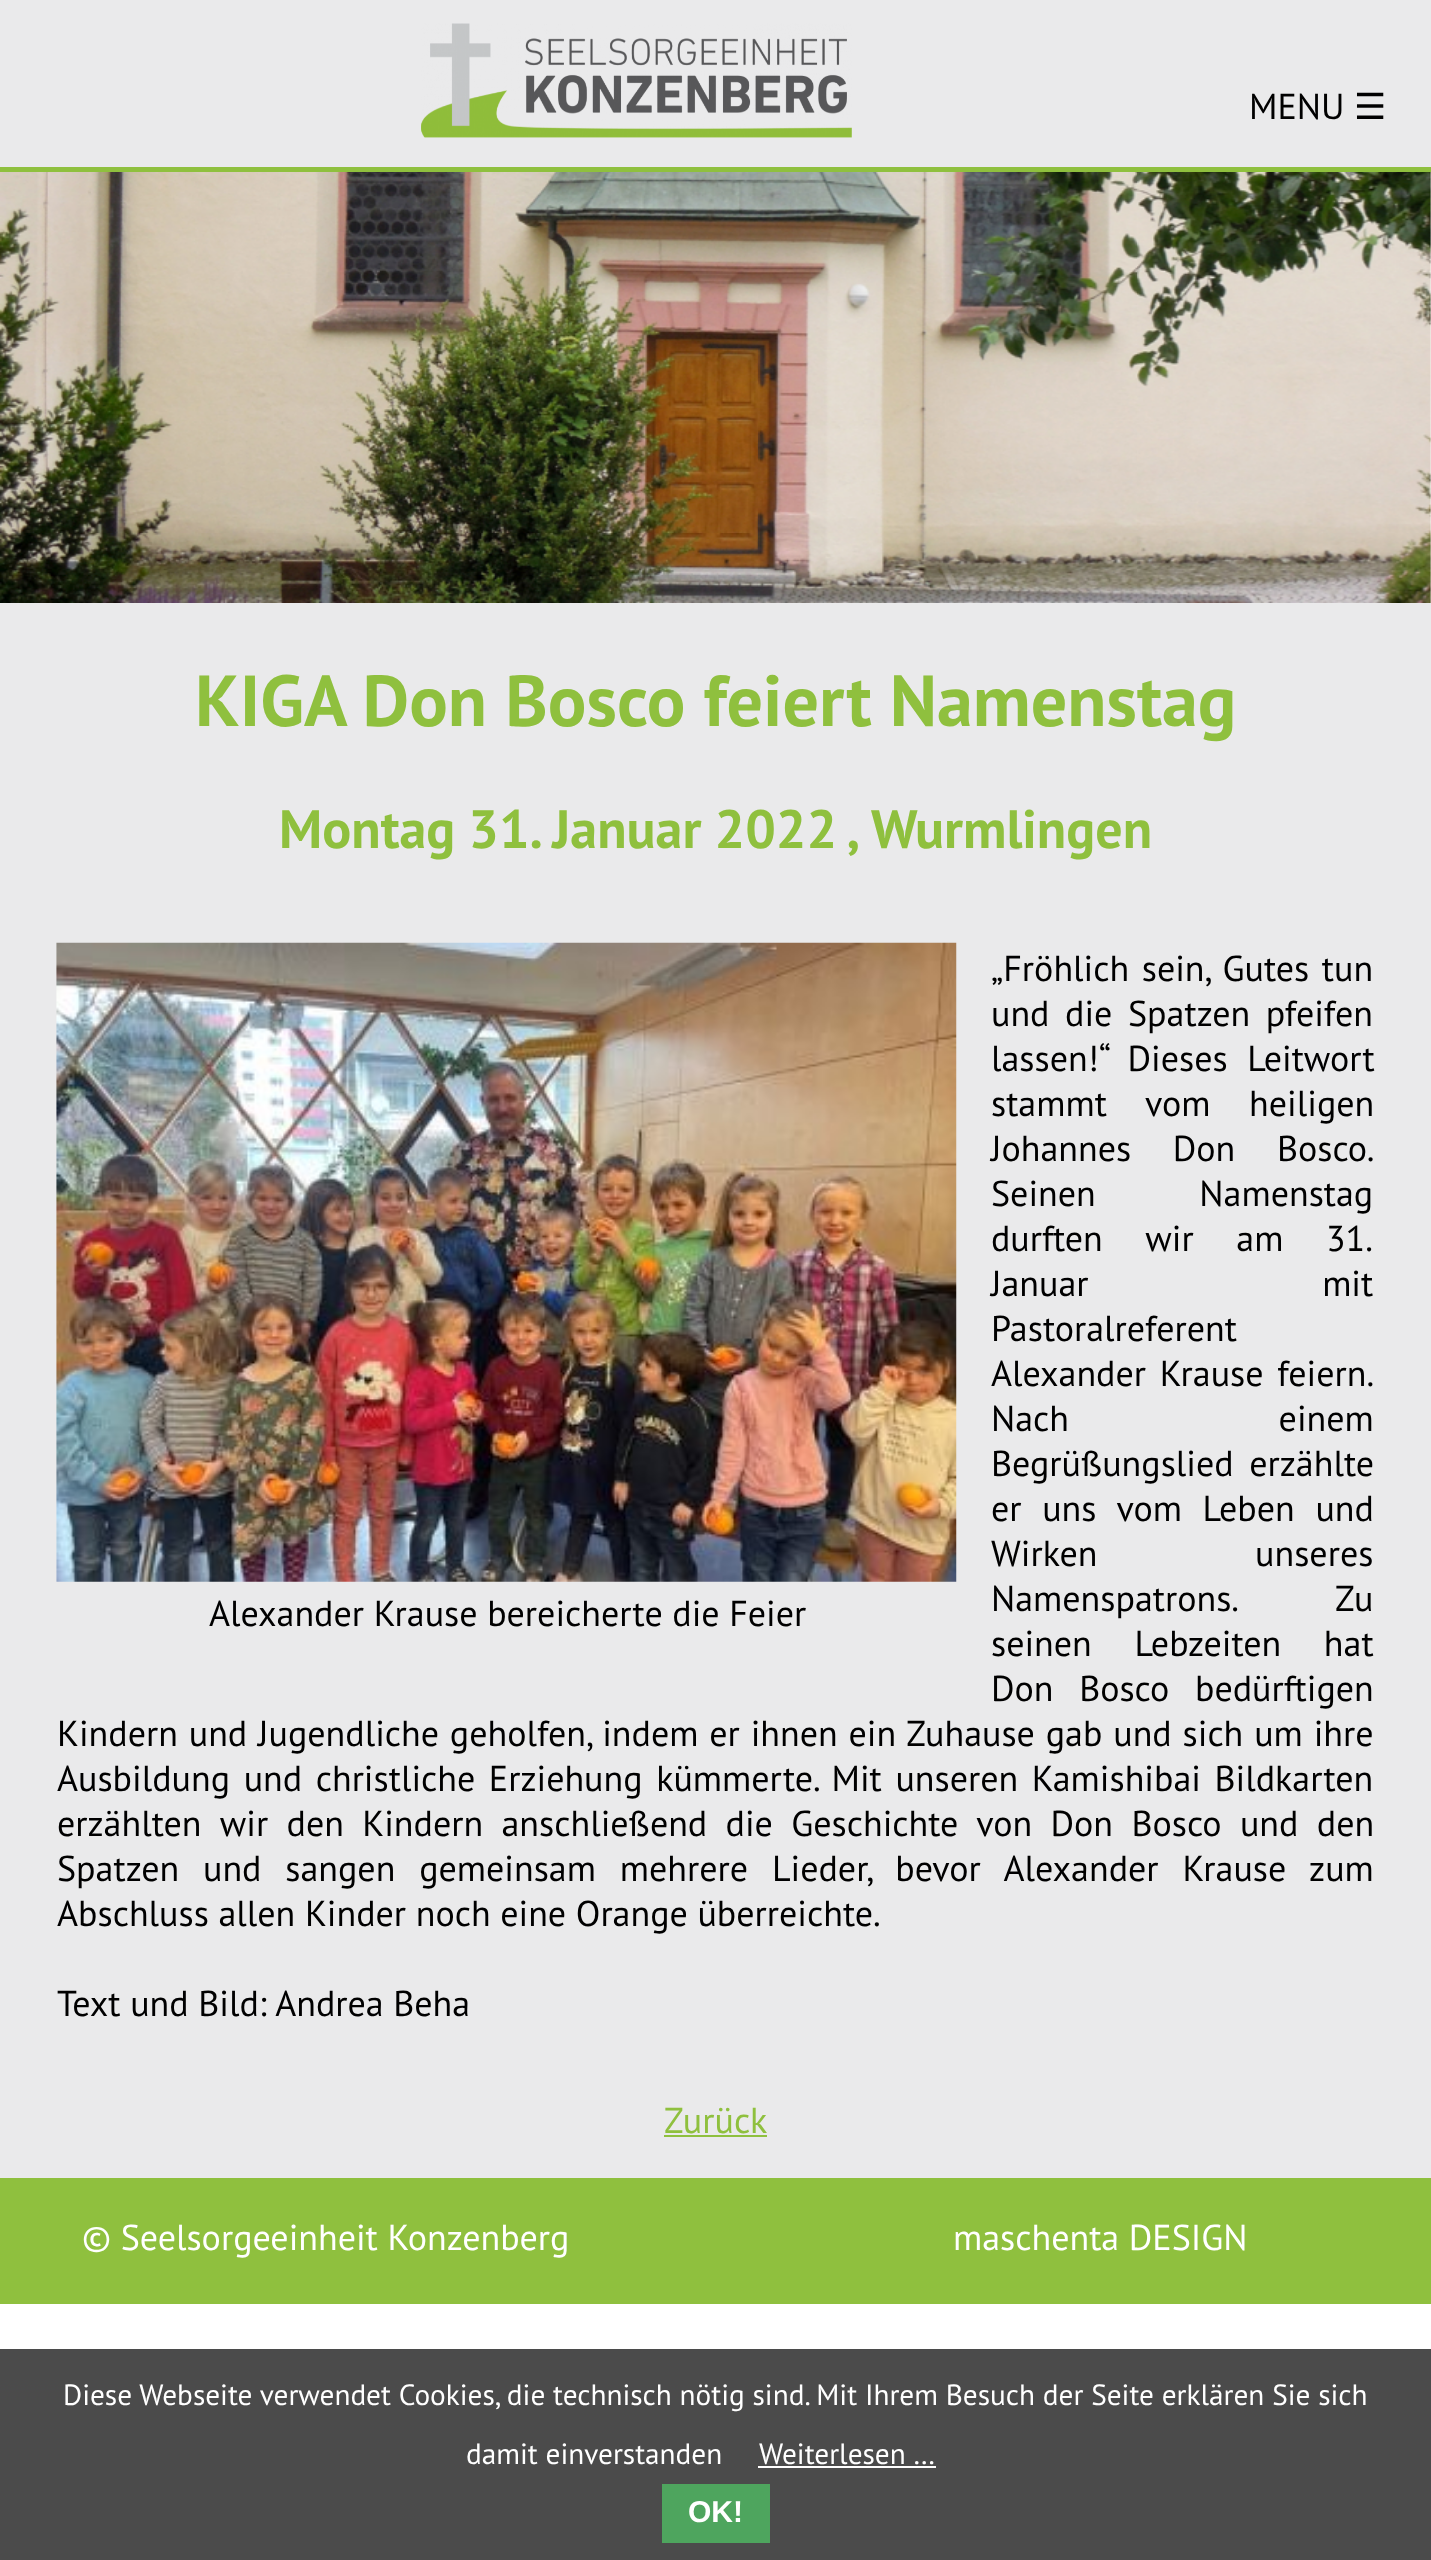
<!DOCTYPE html>
<meta charset="utf-8">
<style>body { margin: 0 } canvas { display: block }</style>
<canvas id="canvas" width="1431" height="2560"></canvas>
<img id="img1" src="img_01.png" hidden>
<img id="img2" src="img_02.png" hidden>
<img id="img3" src="img_03.png" hidden>
<script>
window.onload = function () {
	const canvas = document.getElementById("canvas");
	const ctx = canvas.getContext("2d");
	ctx.miterLimit = 4;
	ctx.fontKerning = "normal";
	function txt(s, x, y) {
		ctx.fillText(s, x, y);
	}
	function fill(x, y, w, h) {
		ctx.fillRect(x, y, w, h);
	}
	function img(id, x, y, w, h) {
		ctx.drawImage(document.getElementById(id), x, y, w, h);
	}

	ctx.fillStyle = "#FFFFFF";
	fill(0, 0, 1431, 2560);
	ctx.fillStyle = "#EAEAEB";
	fill(0, 0, 1431, 167);
	ctx.fillStyle = "#8FC03E";
	fill(0, 167, 1431, 5);
	img("img1", 421, 23, 431, 115);
	img("img2", 0, 172, 1431, 431);
	ctx.fillStyle = "#EAEAEB";
	fill(0, 603, 1431, 1575);
	img("img3", 56, 942, 901, 640);
	ctx.fillStyle = "#8FC03E";
	fill(664, 2135, 103, 2);
	fill(0, 2178, 1431, 126);
	ctx.fillStyle = "#4B4B4B";
	fill(0, 2349, 1431, 211);
	ctx.fillStyle = "#FFFFFF";
	fill(758, 2466, 178, 2);
	ctx.fillStyle = "#4EA55E";
	fill(662, 2484, 108, 59);
	ctx.font = "36px PT Sans";
	ctx.fillStyle = "#000000";
	txt("MENU", 1249, 119);
	ctx.font = "36px DejaVu Sans";
	txt("☰", 1354, 119);
	ctx.font = "bold 72px PT Sans";
	ctx.fillStyle = "#8FC03E";
	txt("KIGA Don Bosco feiert Namenstag", 195, 726);
	ctx.wordSpacing = "-0.5px";
	ctx.font = "bold 54px PT Sans";
	txt("Montag 31. Januar 2022 ,", 279, 848);
	ctx.wordSpacing = "0px";
	txt("Wurmlingen", 871, 848);
	ctx.wordSpacing = "3px";
	ctx.font = "36px PT Sans";
	ctx.fillStyle = "#000000";
	txt("„Fröhlich sein, Gutes tun", 991, 981);
	ctx.wordSpacing = "6px";
	txt("und die Spatzen pfeifen", 991, 1026);
	ctx.wordSpacing = "10px";
	txt("lassen!“ Dieses Leitwort", 991, 1071);
	ctx.wordSpacing = "29px";
	txt("stammt vom heiligen", 991, 1116);
	ctx.wordSpacing = "32px";
	txt("Johannes Don Bosco.", 991, 1161);
	ctx.wordSpacing = "94px";
	txt("Seinen Namenstag", 991, 1206);
	ctx.wordSpacing = "33px";
	txt("durften wir am 31.", 991, 1251);
	ctx.wordSpacing = "224px";
	txt("Januar mit", 991, 1296);
	ctx.wordSpacing = "0px";
	txt("Pastoralreferent", 991, 1341);
	ctx.wordSpacing = "4px";
	txt("Alexander Krause feiern.", 991, 1386);
	ctx.wordSpacing = "200px";
	txt("Nach einem", 991, 1431);
	ctx.wordSpacing = "6px";
	txt("Begrüßungslied erzählte", 991, 1476);
	ctx.wordSpacing = "11px";
	txt("er uns vom Leben und", 991, 1521);
	ctx.wordSpacing = "148px";
	txt("Wirken unseres", 991, 1566);
	ctx.wordSpacing = "90px";
	txt("Namenspatrons. Zu", 991, 1611);
	ctx.wordSpacing = "33px";
	txt("seinen Lebzeiten hat", 991, 1656);
	ctx.wordSpacing = "16px";
	txt("Don Bosco bedürftigen", 991, 1701);
	ctx.wordSpacing = "1.25px";
	txt("Kindern und Jugendliche geholfen, indem er ihnen ein Zuhause gab und sich um ihre", 57, 1746);
	ctx.wordSpacing = "4px";
	txt("Ausbildung und christliche Erziehung kümmerte. Mit unseren Kamishibai Bildkarten", 57, 1791);
	ctx.wordSpacing = "8.75px";
	txt("erzählten wir den Kindern anschließend die Geschichte von Don Bosco und den", 57, 1836);
	ctx.wordSpacing = "14.25px";
	txt("Spatzen und sangen gemeinsam mehrere Lieder, bevor Alexander Krause zum", 57, 1881);
	ctx.wordSpacing = "0px";
	txt("Abschluss allen Kinder noch eine Orange überreichte.", 57, 1926);
	txt("Text und Bild: Andrea Beha", 57, 2016);
	txt("Alexander Krause bereicherte die Feier", 209, 1626);
	ctx.fillStyle = "#8FC03E";
	txt("Zurück", 664, 2133);
	ctx.fillStyle = "#FFFFFF";
	txt("© Seelsorgeeinheit Konzenberg", 82, 2250);
	txt("maschenta DESIGN", 953, 2250);
	ctx.font = "29.25px PT Sans";
	txt("Diese Webseite verwendet Cookies, die technisch nötig sind. Mit Ihrem Besuch der Seite erklären Sie sich", 63, 2405);
	txt("damit einverstanden", 466, 2464);
	txt("Weiterlesen …", 759, 2464);
	ctx.font = "bold 30px Liberation Sans";
	txt("OK!", 688, 2522);
};
</script>
